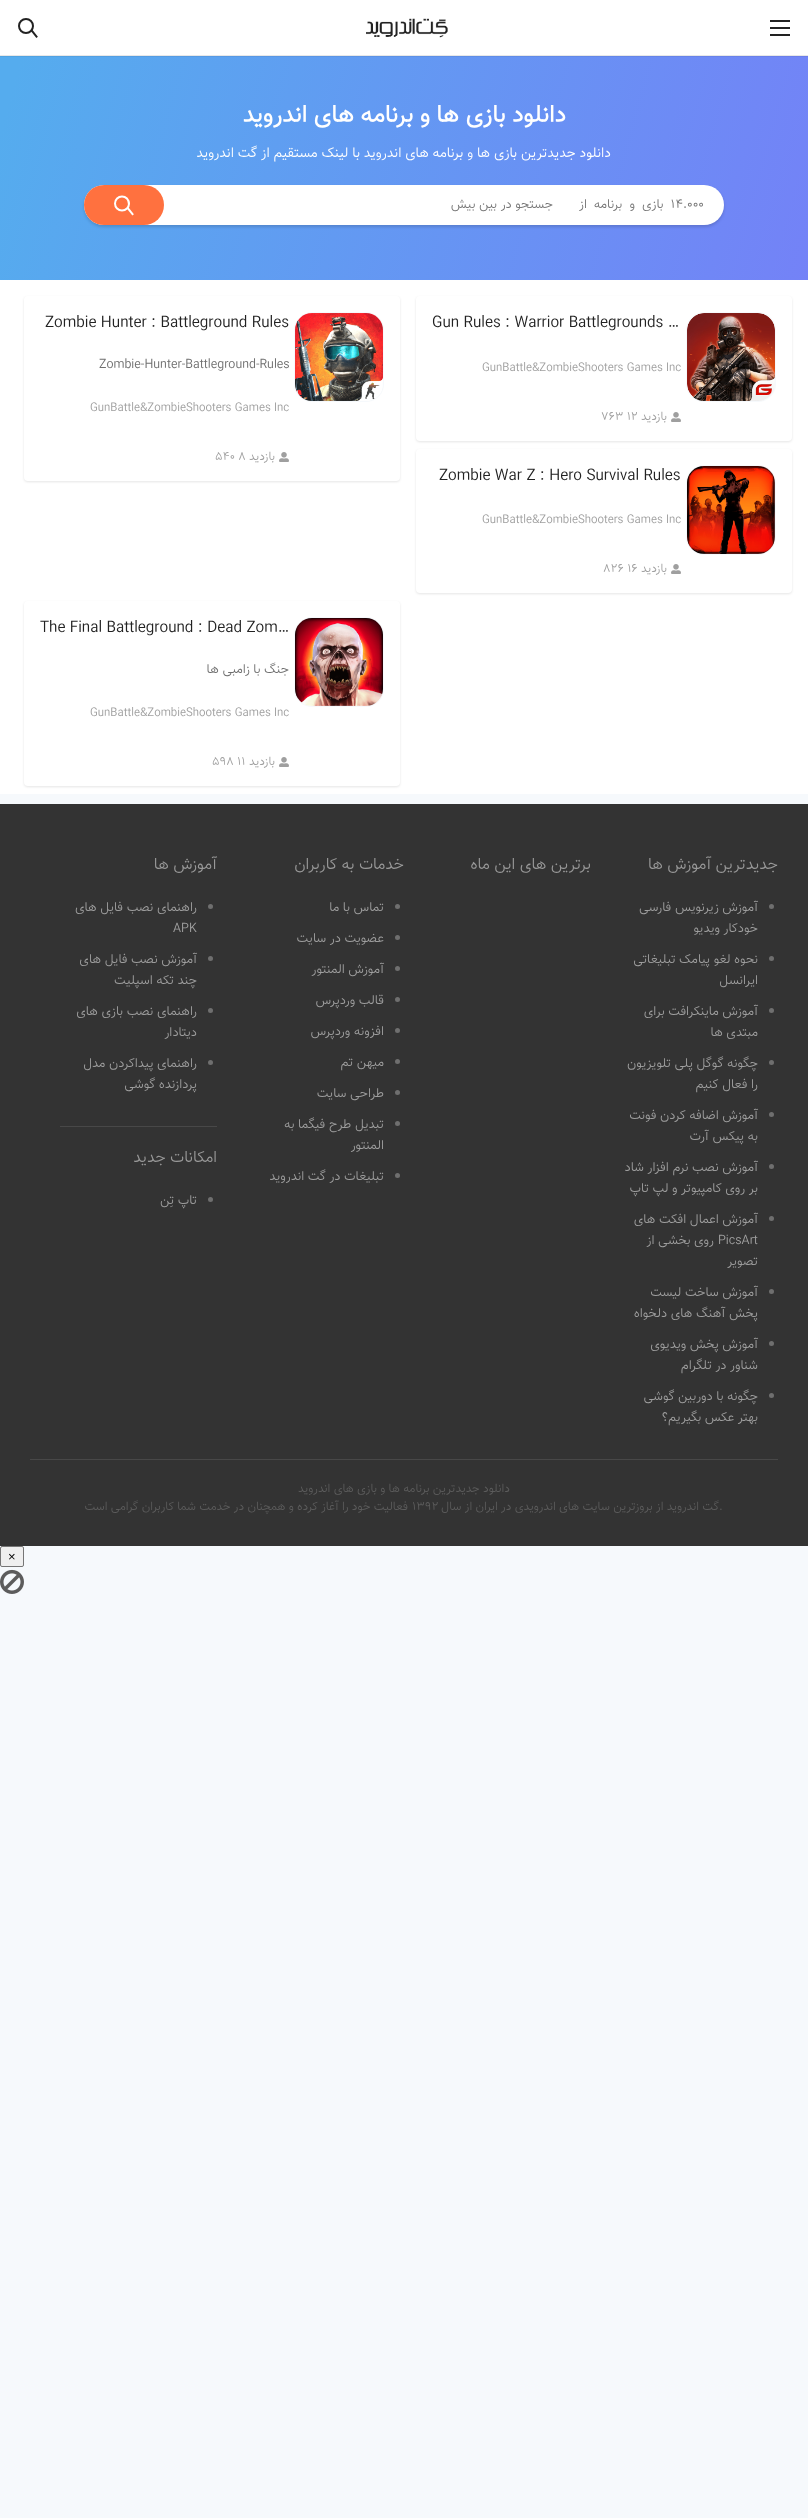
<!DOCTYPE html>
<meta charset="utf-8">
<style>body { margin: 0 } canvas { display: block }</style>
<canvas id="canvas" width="808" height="2518"></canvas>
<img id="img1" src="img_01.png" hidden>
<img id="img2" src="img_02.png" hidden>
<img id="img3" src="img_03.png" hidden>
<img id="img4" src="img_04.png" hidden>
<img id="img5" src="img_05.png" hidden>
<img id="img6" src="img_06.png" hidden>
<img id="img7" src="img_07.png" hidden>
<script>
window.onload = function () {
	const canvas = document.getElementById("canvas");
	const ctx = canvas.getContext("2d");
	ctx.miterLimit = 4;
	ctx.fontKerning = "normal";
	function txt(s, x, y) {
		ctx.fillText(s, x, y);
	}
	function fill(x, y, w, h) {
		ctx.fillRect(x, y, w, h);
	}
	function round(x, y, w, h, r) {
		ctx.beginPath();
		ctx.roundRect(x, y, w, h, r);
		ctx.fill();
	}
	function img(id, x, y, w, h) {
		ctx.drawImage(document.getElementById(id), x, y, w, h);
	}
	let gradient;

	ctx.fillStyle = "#F6F9FC";
	fill(0, 0, 808, 2518);
	gradient = ctx.createLinearGradient(0, 130, 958, 392);
	gradient.addColorStop(0, "#55ACEE");
	gradient.addColorStop(1, "#7A79F9");
	ctx.fillStyle = gradient;
	fill(0, 56, 808, 224);
	ctx.fillStyle = "rgba(0, 0, 0, 0.05)";
	ctx.filter = "blur(0.5px)";
	ctx.beginPath();
	ctx.rect(0, 1, 808, 56);
	ctx.fill();
	ctx.filter = "none";
	ctx.fillStyle = "#FFFFFF";
	fill(0, 0, 808, 55);
	ctx.fillStyle = "#E8E8E8";
	fill(0, 55, 808, 1);
	ctx.fillStyle = "#222222";
	fill(770, 20, 20, 2);
	fill(770, 27, 20, 2);
	fill(770, 34, 20, 2);
	img("img1", 366, 18, 82, 20);
	ctx.beginPath();
	ctx.arc(26, 26, 7, 0, Math.PI * 2);
	ctx.strokeStyle = "#222222";
	ctx.lineWidth = 2;
	ctx.stroke();
	ctx.beginPath();
	ctx.moveTo(32, 31);
	ctx.lineTo(36.5, 36.5);
	ctx.lineCap = "square";
	ctx.stroke();
	ctx.fillStyle = "rgba(0, 0, 0, 0.15)";
	ctx.filter = "blur(1.5px)";
	ctx.beginPath();
	ctx.roundRect(84, 187, 640, 40, 20);
	ctx.fill();
	ctx.filter = "none";
	ctx.fillStyle = "#FFFFFF";
	round(84, 185, 640, 40, 20);
	ctx.fillStyle = "#FF713F";
	round(84, 185, 80, 40, 20);
	ctx.beginPath();
	ctx.arc(122, 203.5, 7, 0, Math.PI * 2);
	ctx.strokeStyle = "#FFFFFF";
	ctx.stroke();
	ctx.beginPath();
	ctx.moveTo(128, 208.5);
	ctx.lineTo(132.5, 214);
	ctx.stroke();
	ctx.fillStyle = "#FFFFFF";
	fill(0, 280, 808, 514);
	ctx.fillStyle = "rgba(0, 0, 0, 0.1)";
	ctx.filter = "blur(1px)";
	ctx.beginPath();
	ctx.roundRect(416, 297, 376, 145, 4);
	ctx.fill();
	ctx.filter = "none";
	ctx.fillStyle = "#FFFFFF";
	round(416, 296, 376, 145, 4);
	ctx.beginPath();
	ctx.roundRect(686.5, 312.5, 89, 89, 17.5);
	ctx.strokeStyle = "#F6F9FC";
	ctx.lineWidth = 1;
	ctx.stroke();
	img("img2", 687, 313, 88, 88);
	img("img3", 671, 412, 10, 10);
	ctx.fillStyle = "rgba(0, 0, 0, 0.1)";
	ctx.filter = "blur(1px)";
	ctx.beginPath();
	ctx.roundRect(24, 297, 376, 185, 4);
	ctx.fill();
	ctx.filter = "none";
	ctx.fillStyle = "#FFFFFF";
	round(24, 296, 376, 185, 4);
	ctx.beginPath();
	ctx.roundRect(294.5, 312.5, 89, 89, 17.5);
	ctx.stroke();
	img("img4", 295, 313, 88, 88);
	img("img3", 279, 452, 10, 10);
	ctx.fillStyle = "rgba(0, 0, 0, 0.1)";
	ctx.filter = "blur(1px)";
	ctx.beginPath();
	ctx.roundRect(416, 450, 376, 144, 4);
	ctx.fill();
	ctx.filter = "none";
	ctx.fillStyle = "#FFFFFF";
	round(416, 449, 376, 144, 4);
	ctx.beginPath();
	ctx.roundRect(686.5, 465.5, 89, 89, 17.5);
	ctx.stroke();
	img("img5", 687, 466, 88, 88);
	img("img3", 671, 564, 10, 10);
	ctx.fillStyle = "rgba(0, 0, 0, 0.1)";
	ctx.filter = "blur(1px)";
	ctx.beginPath();
	ctx.roundRect(24, 602, 376, 185, 4);
	ctx.fill();
	ctx.filter = "none";
	ctx.fillStyle = "#FFFFFF";
	round(24, 601, 376, 185, 4);
	ctx.beginPath();
	ctx.roundRect(294.5, 617.5, 89, 89, 17.5);
	ctx.stroke();
	img("img6", 295, 618, 88, 88);
	img("img3", 279, 757, 10, 10);
	ctx.fillStyle = "#333333";
	fill(0, 804, 808, 742);
	ctx.fillStyle = "#6F6F6F";
	ctx.beginPath();
	ctx.arc(771.5, 906.5, 2.5, 0, Math.PI * 2);
	ctx.fill();
	ctx.beginPath();
	ctx.arc(771.5, 958.5, 2.5, 0, Math.PI * 2);
	ctx.fill();
	ctx.beginPath();
	ctx.arc(771.5, 1010.5, 2.5, 0, Math.PI * 2);
	ctx.fill();
	ctx.beginPath();
	ctx.arc(771.5, 1062.5, 2.5, 0, Math.PI * 2);
	ctx.fill();
	ctx.beginPath();
	ctx.arc(771.5, 1114.5, 2.5, 0, Math.PI * 2);
	ctx.fill();
	ctx.beginPath();
	ctx.arc(771.5, 1166.5, 2.5, 0, Math.PI * 2);
	ctx.fill();
	ctx.beginPath();
	ctx.arc(771.5, 1218.5, 2.5, 0, Math.PI * 2);
	ctx.fill();
	ctx.beginPath();
	ctx.arc(771.5, 1291.5, 2.5, 0, Math.PI * 2);
	ctx.fill();
	ctx.beginPath();
	ctx.arc(771.5, 1343.5, 2.5, 0, Math.PI * 2);
	ctx.fill();
	ctx.beginPath();
	ctx.arc(771.5, 1395.5, 2.5, 0, Math.PI * 2);
	ctx.fill();
	ctx.beginPath();
	ctx.arc(397.5, 906.5, 2.5, 0, Math.PI * 2);
	ctx.fill();
	ctx.beginPath();
	ctx.arc(397.5, 937.5, 2.5, 0, Math.PI * 2);
	ctx.fill();
	ctx.beginPath();
	ctx.arc(397.5, 968.5, 2.5, 0, Math.PI * 2);
	ctx.fill();
	ctx.beginPath();
	ctx.arc(397.5, 999.5, 2.5, 0, Math.PI * 2);
	ctx.fill();
	ctx.beginPath();
	ctx.arc(397.5, 1030.5, 2.5, 0, Math.PI * 2);
	ctx.fill();
	ctx.beginPath();
	ctx.arc(397.5, 1061.5, 2.5, 0, Math.PI * 2);
	ctx.fill();
	ctx.beginPath();
	ctx.arc(397.5, 1092.5, 2.5, 0, Math.PI * 2);
	ctx.fill();
	ctx.beginPath();
	ctx.arc(397.5, 1123.5, 2.5, 0, Math.PI * 2);
	ctx.fill();
	ctx.beginPath();
	ctx.arc(397.5, 1175.5, 2.5, 0, Math.PI * 2);
	ctx.fill();
	ctx.beginPath();
	ctx.arc(210.5, 906.5, 2.5, 0, Math.PI * 2);
	ctx.fill();
	ctx.beginPath();
	ctx.arc(210.5, 958.5, 2.5, 0, Math.PI * 2);
	ctx.fill();
	ctx.beginPath();
	ctx.arc(210.5, 1010.5, 2.5, 0, Math.PI * 2);
	ctx.fill();
	ctx.beginPath();
	ctx.arc(210.5, 1062.5, 2.5, 0, Math.PI * 2);
	ctx.fill();
	ctx.fillStyle = "#484848";
	fill(60, 1126, 157, 1);
	ctx.fillStyle = "#6F6F6F";
	ctx.beginPath();
	ctx.arc(210.5, 1199.5, 2.5, 0, Math.PI * 2);
	ctx.fill();
	ctx.fillStyle = "#484848";
	fill(30, 1459, 748, 1);
	ctx.fillStyle = "#EFEFEF";
	ctx.beginPath();
	ctx.roundRect(0.5, 1546.5, 23, 20, 1.5);
	ctx.fill();
	ctx.strokeStyle = "#767676";
	ctx.stroke();
	img("img7", 0, 1569, 24, 25);
	ctx.direction = "rtl";
	ctx.font = "bold 24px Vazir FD";
	ctx.fillStyle = "#FFFFFF";
	txt("دانلود بازی ها و برنامه های اندروید", 566, 122);
	ctx.font = "300 14px Vazir FD";
	txt("دانلود جدیدترین بازی ها و برنامه های اندروید با لینک مستقیم از گت اندروید", 611, 157);
	ctx.wordSpacing = "3.5px";
	ctx.font = "300 13px Vazir FD";
	ctx.fillStyle = "#757575";
	txt("14.000 بازی و برنامه", 704, 208);
	ctx.wordSpacing = "0px";
	txt("از", 587, 208);
	txt("جستجو در بین بیش", 553, 208);
	ctx.direction = "ltr";
	ctx.font = "300 16px Vazir FD";
	ctx.fillStyle = "#222222";
	txt("Gun Rules : Warrior Battlegrounds …", 432, 327);
	ctx.font = "300 12px Vazir FD";
	ctx.fillStyle = "#9F9F9F";
	txt("GunBattle&ZombieShooters Games Inc", 482, 371);
	ctx.direction = "rtl";
	txt("بازدید", 667, 420);
	ctx.direction = "ltr";
	txt("763 12", 601, 420);
	ctx.font = "300 16px Vazir FD";
	ctx.fillStyle = "#222222";
	txt("Zombie Hunter : Battleground Rules", 45, 327);
	ctx.font = "300 13px Vazir FD";
	ctx.fillStyle = "#6F6F6F";
	txt("Zombie-Hunter-Battleground-Rules", 99, 368);
	ctx.font = "300 12px Vazir FD";
	ctx.fillStyle = "#9F9F9F";
	txt("GunBattle&ZombieShooters Games Inc", 90, 411);
	ctx.direction = "rtl";
	txt("بازدید", 275, 460);
	ctx.direction = "ltr";
	txt("540 8", 215, 460);
	ctx.font = "300 16px Vazir FD";
	ctx.fillStyle = "#222222";
	txt("Zombie War Z : Hero Survival Rules", 439, 480);
	ctx.font = "300 12px Vazir FD";
	ctx.fillStyle = "#9F9F9F";
	txt("GunBattle&ZombieShooters Games Inc", 482, 523);
	ctx.direction = "rtl";
	txt("بازدید", 667, 572);
	ctx.direction = "ltr";
	txt("826 16", 603, 572);
	ctx.font = "300 16px Vazir FD";
	ctx.fillStyle = "#222222";
	txt("The Final Battleground : Dead Zom…", 40, 632);
	ctx.direction = "rtl";
	ctx.font = "300 13px Vazir FD";
	ctx.fillStyle = "#6F6F6F";
	txt("جنگ با زامبی ها", 289, 673);
	ctx.direction = "ltr";
	ctx.font = "300 12px Vazir FD";
	ctx.fillStyle = "#9F9F9F";
	txt("GunBattle&ZombieShooters Games Inc", 90, 716);
	ctx.direction = "rtl";
	txt("بازدید", 275, 765);
	ctx.direction = "ltr";
	txt("598 11", 212, 765);
	ctx.direction = "rtl";
	ctx.font = "300 16px Vazir FD";
	ctx.fillStyle = "#999999";
	txt("جدیدترین آموزش ها", 778, 869);
	ctx.font = "300 13px Vazir FD";
	ctx.fillStyle = "#9F9F9F";
	txt("آموزش زیرنویس فارسی", 758, 911);
	txt("خودکار ویدیو", 758, 932);
	txt("نحوه لغو پیامک تبلیغاتی", 758, 963);
	txt("ایرانسل", 758, 984);
	txt("آموزش ماینکرافت برای", 758, 1015);
	txt("مبتدی ها", 758, 1036);
	txt("چگونه گوگل پلی تلویزیون", 758, 1067);
	txt("را فعال کنیم", 758, 1088);
	txt("آموزش اضافه کردن فونت", 758, 1119);
	txt("به پیکس آرت", 758, 1140);
	txt("آموزش نصب نرم افزار شاد", 758, 1171);
	txt("بر روی کامپیوتر و لپ تاپ", 758, 1192);
	txt("آموزش اعمال افکت های", 758, 1223);
	ctx.direction = "ltr";
	txt("PicsArt", 718, 1244);
	ctx.direction = "rtl";
	txt("روی بخشی از", 714, 1244);
	txt("تصویر", 758, 1265);
	txt("آموزش ساخت لیست", 758, 1296);
	txt("پخش آهنگ های دلخواه", 758, 1317);
	txt("آموزش پخش ویدیوی", 758, 1348);
	txt("شناور در تلگرام", 758, 1369);
	txt("چگونه با دوربین گوشی", 758, 1400);
	txt("بهتر عکس بگیریم؟", 758, 1421);
	ctx.font = "300 16px Vazir FD";
	ctx.fillStyle = "#999999";
	txt("برترین های این ماه", 591, 869);
	txt("خدمات به کاربران", 404, 869);
	ctx.font = "300 13px Vazir FD";
	ctx.fillStyle = "#9F9F9F";
	txt("تماس با ما", 384, 911);
	txt("عضویت در سایت", 384, 942);
	txt("آموزش المنتور", 384, 973);
	txt("قالب وردپرس", 384, 1004);
	txt("افزونه وردپرس", 384, 1035);
	txt("میهن تم", 384, 1066);
	txt("طراحی سایت", 384, 1097);
	txt("تبدیل طرح فیگما به", 384, 1128);
	txt("المنتور", 384, 1149);
	txt("تبلیغات در گت اندروید", 384, 1180);
	ctx.font = "300 16px Vazir FD";
	ctx.fillStyle = "#999999";
	txt("آموزش ها", 217, 869);
	ctx.font = "300 13px Vazir FD";
	ctx.fillStyle = "#9F9F9F";
	txt("راهنمای نصب فایل های", 197, 911);
	ctx.direction = "ltr";
	txt("APK", 173, 932);
	ctx.direction = "rtl";
	txt("آموزش نصب فایل های", 197, 963);
	txt("چند تکه اسپلیت", 197, 984);
	txt("راهنمای نصب بازی های", 197, 1015);
	txt("دیتادار", 197, 1036);
	txt("راهنمای پیداکردن مدل", 197, 1067);
	txt("پردازنده گوشی", 197, 1088);
	ctx.font = "300 16px Vazir FD";
	ctx.fillStyle = "#999999";
	txt("امکانات جدید", 217, 1162);
	ctx.font = "300 13px Vazir FD";
	ctx.fillStyle = "#9F9F9F";
	txt("تاپ تِن", 197, 1204);
	ctx.font = "300 12px Vazir FD";
	ctx.fillStyle = "#5C5C5C";
	txt("دانلود جدیدترین برنامه ها و بازی های اندروید", 510, 1492);
	ctx.direction = "ltr";
	txt(".", 719, 1510);
	ctx.direction = "rtl";
	txt("گت اندروید از بروزترین سایت های اندرویدی در ایران از سال", 719, 1510);
	ctx.direction = "ltr";
	txt("1392", 412, 1510);
	ctx.direction = "rtl";
	txt("فعالیت خود را آغاز کرده و همچنان در خدمت شما کاربران گرامی است", 408, 1510);
	ctx.direction = "ltr";
	ctx.font = "13px Liberation Sans";
	ctx.fillStyle = "#000000";
	txt("×", 8, 1561);
};
</script>
